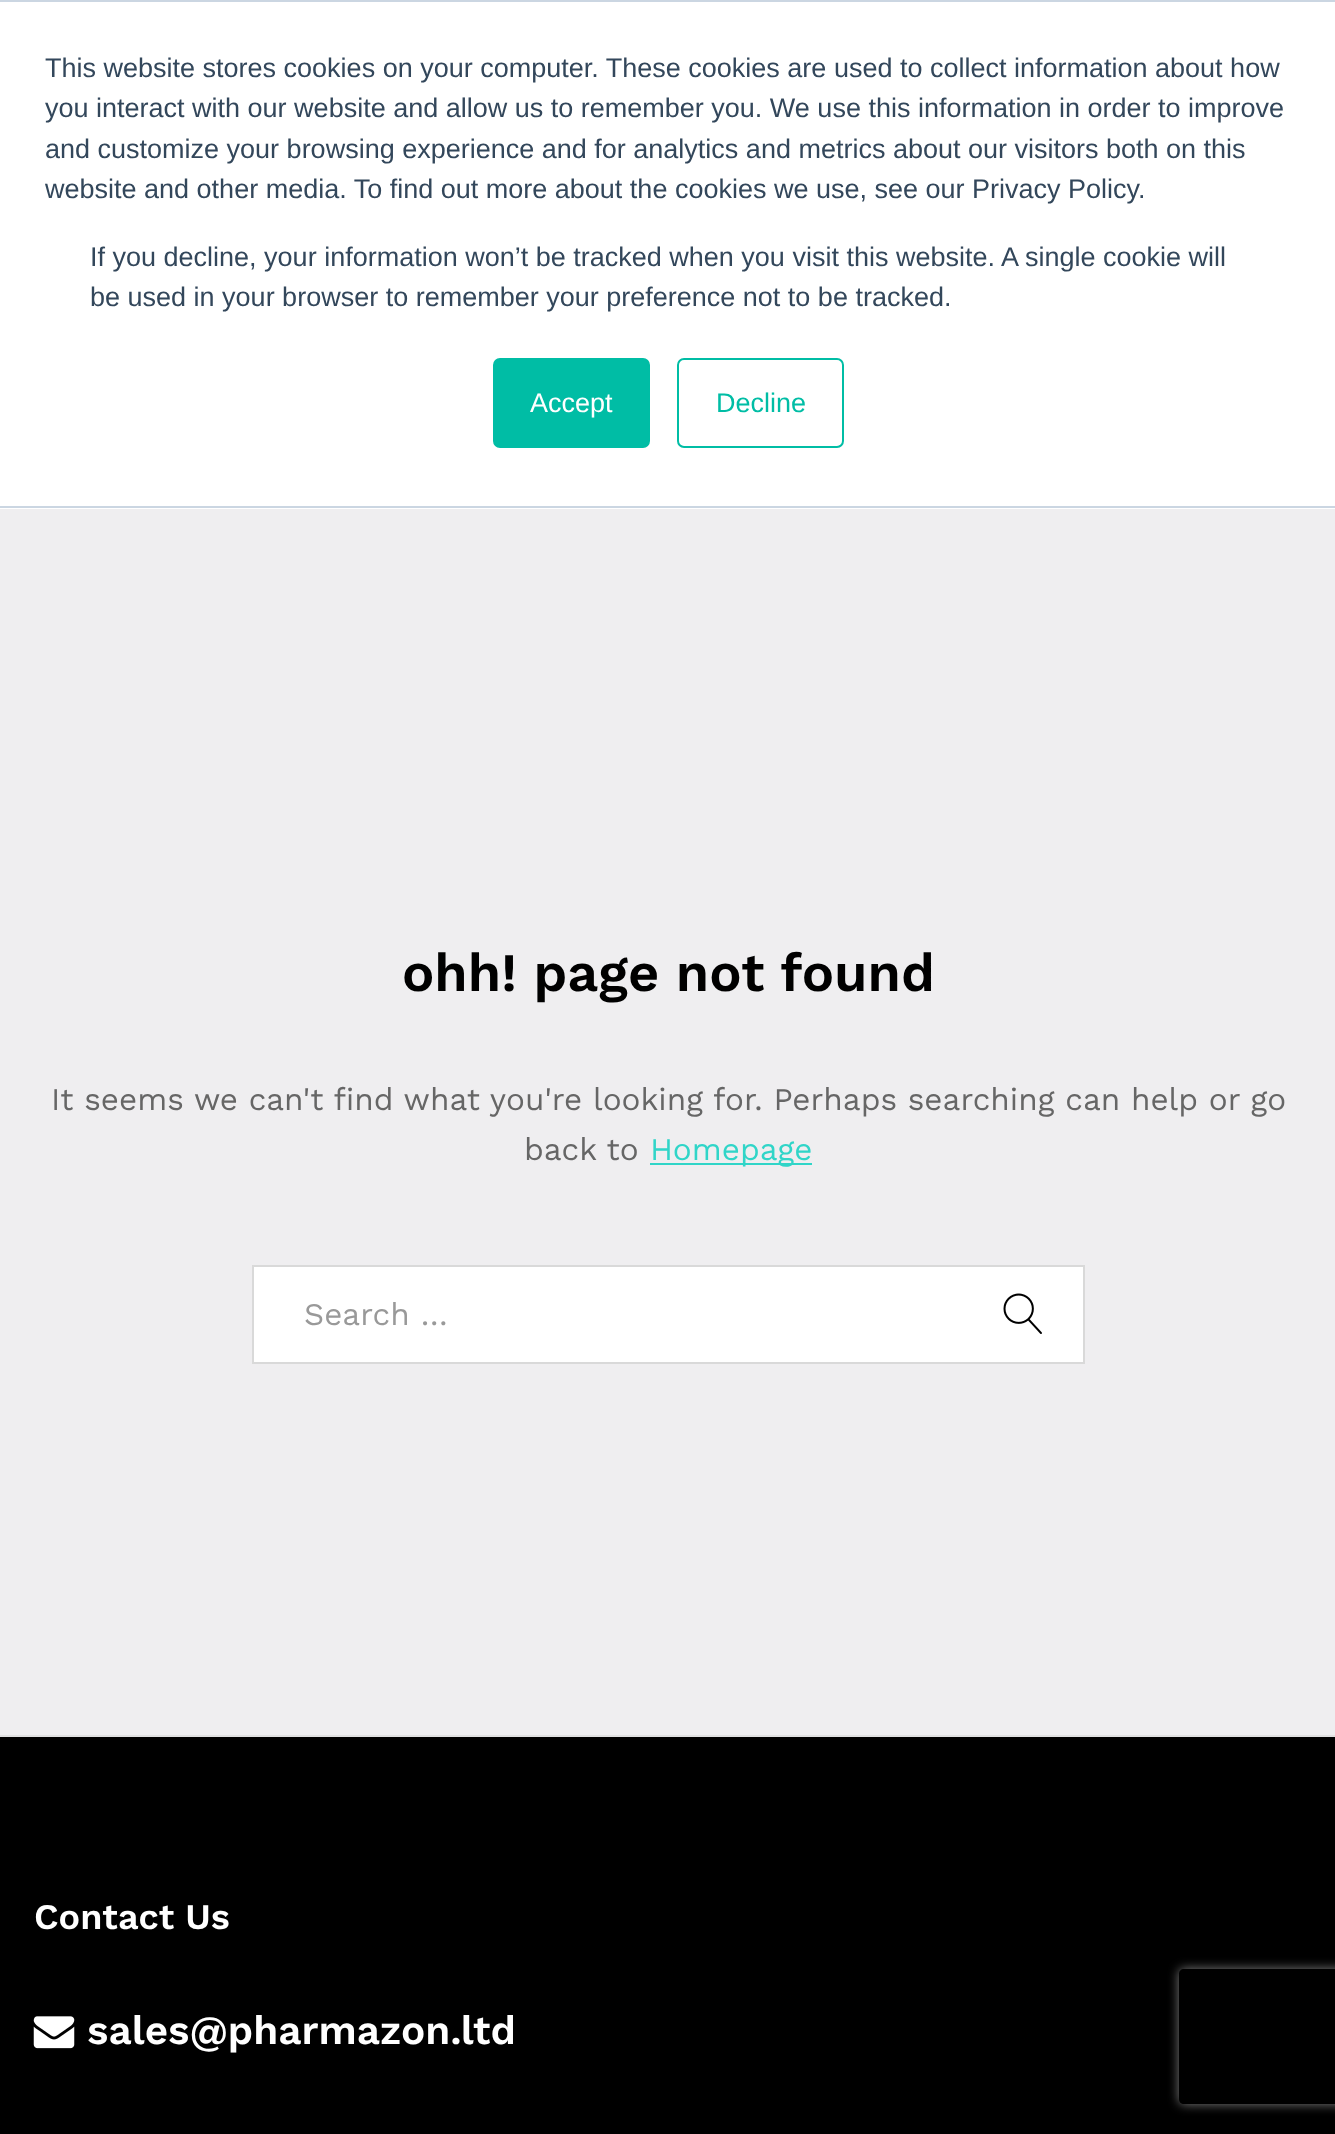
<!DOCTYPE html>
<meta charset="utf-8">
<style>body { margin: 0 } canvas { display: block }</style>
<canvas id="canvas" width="1335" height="2134"></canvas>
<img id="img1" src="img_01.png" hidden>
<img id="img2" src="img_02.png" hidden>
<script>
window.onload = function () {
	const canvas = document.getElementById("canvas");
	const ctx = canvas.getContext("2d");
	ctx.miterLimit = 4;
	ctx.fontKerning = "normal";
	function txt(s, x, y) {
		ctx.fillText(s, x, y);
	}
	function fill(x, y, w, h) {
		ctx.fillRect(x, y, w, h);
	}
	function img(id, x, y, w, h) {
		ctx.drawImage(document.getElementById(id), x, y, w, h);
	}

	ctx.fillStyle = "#EFEEF0";
	fill(0, 0, 1335, 2134);
	ctx.fillStyle = "#FFFFFF";
	fill(0, 2, 1335, 507);
	ctx.fillStyle = "#CBD6E2";
	fill(0, 0, 1335, 2);
	fill(0, 506, 1335, 2);
	ctx.fillStyle = "#00BDA5";
	ctx.beginPath();
	ctx.roundRect(494, 359, 155, 88, 6);
	ctx.fill();
	ctx.strokeStyle = "#00BDA5";
	ctx.lineWidth = 2;
	ctx.stroke();
	ctx.beginPath();
	ctx.roundRect(678, 359, 165, 88, 6);
	ctx.stroke();
	ctx.fillStyle = "#30D5C8";
	fill(650, 1163, 162, 2);
	ctx.fillStyle = "#FFFFFF";
	ctx.beginPath();
	ctx.rect(253, 1266, 831, 97);
	ctx.fill();
	ctx.strokeStyle = "#D9D9D9";
	ctx.stroke();
	img("img1", 1003, 1293, 39, 41);
	ctx.fillStyle = "#E1E1E1";
	fill(0, 1735, 1335, 2);
	ctx.fillStyle = "#000000";
	fill(0, 1737, 1335, 397);
	img("img2", 33, 2016, 42, 33);
	ctx.save();
	ctx.beginPath();
	ctx.moveTo(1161, 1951);
	ctx.lineTo(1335, 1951);
	ctx.lineTo(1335, 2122);
	ctx.lineTo(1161, 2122);
	ctx.closePath();
	ctx.moveTo(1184, 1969);
	ctx.lineTo(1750, 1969);
	ctx.bezierCurveTo(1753, 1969, 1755, 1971, 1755, 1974);
	ctx.lineTo(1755, 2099);
	ctx.bezierCurveTo(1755, 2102, 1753, 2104, 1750, 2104);
	ctx.lineTo(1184, 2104);
	ctx.bezierCurveTo(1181, 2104, 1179, 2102, 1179, 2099);
	ctx.lineTo(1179, 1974);
	ctx.bezierCurveTo(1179, 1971, 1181, 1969, 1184, 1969);
	ctx.closePath();
	ctx.clip("evenodd");
	ctx.fillStyle = "#808080";
	ctx.filter = "blur(5.5px)";
	ctx.beginPath();
	ctx.roundRect(1179, 1969, 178, 135, 5);
	ctx.fill();
	ctx.filter = "none";
	ctx.restore();
	ctx.font = "27px Liberation Sans";
	ctx.fillStyle = "#33475B";
	txt("This website stores cookies on your computer. These cookies are used to collect information about how", 45, 77);
	txt("you interact with our website and allow us to remember you. We use this information in order to improve", 45, 117);
	txt("and customize your browsing experience and for analytics and metrics about our visitors both on this", 45, 158);
	txt("website and other media. To find out more about the cookies we use, see our Privacy Policy.", 45, 198);
	txt("If you decline, your information won’t be tracked when you visit this website. A single cookie will", 90, 266);
	txt("be used in your browser to remember your preference not to be tracked.", 90, 306);
	ctx.fillStyle = "#FFFFFF";
	txt("Accept", 530, 412);
	ctx.fillStyle = "#00BDA5";
	txt("Decline", 716, 412);
	ctx.font = "600 54px Work Sans";
	ctx.fillStyle = "#000000";
	txt("ohh! page not found", 402, 991);
	ctx.font = "31.5px Work Sans";
	ctx.fillStyle = "#666666";
	txt("It seems we can't find what you're looking for. Perhaps searching can help or go", 51, 1110);
	txt("back to", 524, 1160);
	ctx.fillStyle = "#30D5C8";
	txt("Homepage", 650, 1160);
	ctx.fillStyle = "#999999";
	txt("Search …", 304, 1325);
	ctx.font = "600 36px Work Sans";
	ctx.fillStyle = "#FFFFFF";
	txt("Contact Us", 34, 1929);
	ctx.font = "600 40.5px Work Sans";
	txt("sales@pharmazon.ltd", 87, 2044);
};
</script>
